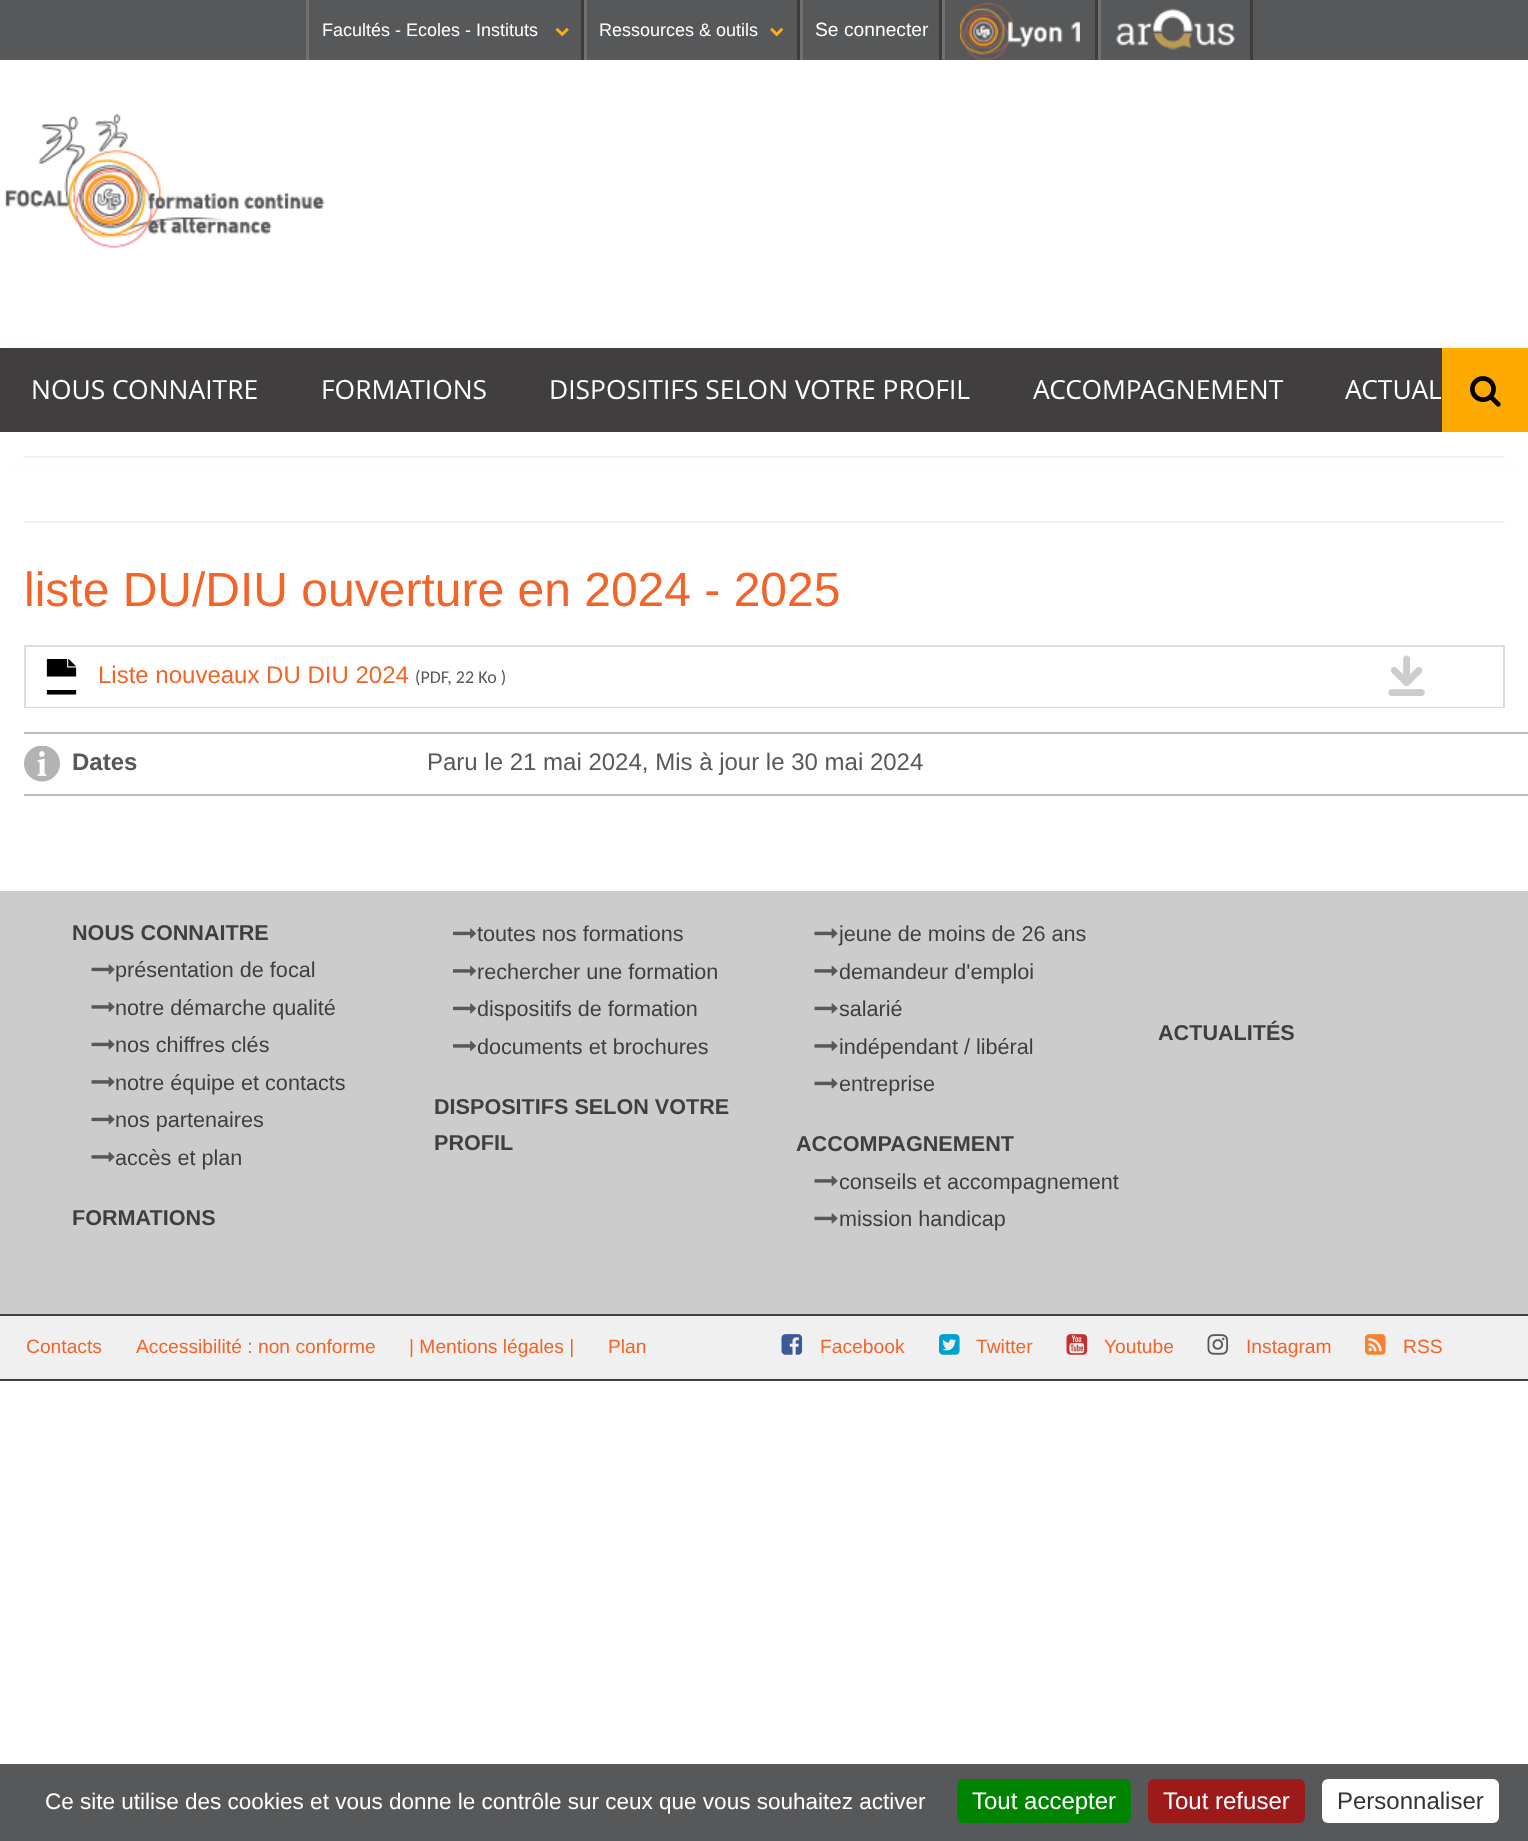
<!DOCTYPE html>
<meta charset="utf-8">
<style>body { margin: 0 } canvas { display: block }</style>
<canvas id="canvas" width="1528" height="1841"></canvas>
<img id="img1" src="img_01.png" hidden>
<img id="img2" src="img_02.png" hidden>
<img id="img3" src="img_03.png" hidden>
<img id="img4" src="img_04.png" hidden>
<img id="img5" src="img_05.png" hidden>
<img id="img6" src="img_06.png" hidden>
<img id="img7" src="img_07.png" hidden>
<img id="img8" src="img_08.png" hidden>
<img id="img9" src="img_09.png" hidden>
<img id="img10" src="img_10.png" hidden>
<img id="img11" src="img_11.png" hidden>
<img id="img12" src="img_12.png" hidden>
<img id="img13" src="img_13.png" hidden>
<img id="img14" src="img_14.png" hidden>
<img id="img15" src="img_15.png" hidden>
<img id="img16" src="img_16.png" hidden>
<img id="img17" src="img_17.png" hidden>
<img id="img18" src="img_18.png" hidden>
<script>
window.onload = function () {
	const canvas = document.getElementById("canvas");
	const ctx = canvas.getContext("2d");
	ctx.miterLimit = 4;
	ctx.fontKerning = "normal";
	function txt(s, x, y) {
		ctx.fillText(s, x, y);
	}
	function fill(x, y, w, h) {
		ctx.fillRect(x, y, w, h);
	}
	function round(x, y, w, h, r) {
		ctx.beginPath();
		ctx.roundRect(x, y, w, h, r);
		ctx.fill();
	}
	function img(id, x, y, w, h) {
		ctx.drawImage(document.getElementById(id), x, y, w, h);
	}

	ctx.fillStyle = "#FFFFFF";
	fill(0, 0, 1528, 1841);
	ctx.fillStyle = "#57585A";
	fill(0, 0, 1528, 60);
	ctx.fillStyle = "#3E3D3B";
	fill(581, 0, 3, 60);
	ctx.fillStyle = "#727071";
	fill(306, 0, 3, 60);
	img("img1", 555, 28, 14, 9);
	ctx.fillStyle = "#3E3D3B";
	fill(797, 0, 3, 60);
	ctx.fillStyle = "#727071";
	fill(584, 0, 3, 60);
	img("img2", 770, 28, 14, 9);
	ctx.fillStyle = "#3E3D3B";
	fill(939, 0, 3, 60);
	ctx.fillStyle = "#727071";
	fill(800, 0, 3, 60);
	ctx.fillStyle = "#3E3D3B";
	fill(1095, 0, 3, 60);
	ctx.fillStyle = "#727071";
	fill(942, 0, 3, 60);
	img("img3", 960, 2, 120, 58);
	ctx.fillStyle = "#3E3D3B";
	fill(1250, 0, 3, 60);
	ctx.fillStyle = "#727071";
	fill(1098, 0, 3, 60);
	img("img4", 1115, 8, 120, 42);
	img("img5", 5, 113, 320, 135);
	ctx.fillStyle = "#C7C7C7";
	ctx.filter = "blur(14px)";
	ctx.beginPath();
	ctx.rect(6, 366, 1517, 72);
	ctx.fill();
	ctx.filter = "none";
	ctx.fillStyle = "#403E3F";
	fill(0, 348, 1442, 84);
	ctx.fillStyle = "#FFAA00";
	fill(1442, 348, 86, 84);
	img("img6", 1470, 376, 31, 31);
	ctx.fillStyle = "#FFFFFF";
	fill(0, 432, 1528, 30);
	ctx.fillStyle = "#F2F2F2";
	fill(24, 456, 1481, 2);
	fill(24, 521, 1481, 2);
	ctx.strokeStyle = "#DDDDDD";
	ctx.lineWidth = 2;
	ctx.strokeRect(25, 646, 1479, 61);
	img("img7", 1388, 655, 37, 41);
	ctx.fillStyle = "rgba(255, 255, 255, 0.8)";
	fill(26, 655, 1477, 52);
	img("img8", 46, 659, 31, 36);
	img("img9", 24, 746, 36, 36);
	ctx.fillStyle = "#BBBBBB";
	fill(24, 732, 1504, 2);
	fill(24, 794, 1504, 2);
	ctx.fillStyle = "#CCCCCC";
	fill(0, 891, 1528, 423);
	ctx.fillStyle = "#403E3F";
	fill(0, 1314, 1528, 2);
	img("img10", 91, 964, 24, 11);
	img("img11", 91, 1001, 24, 11);
	img("img10", 91, 1039, 24, 11);
	img("img11", 91, 1076, 24, 11);
	img("img10", 91, 1114, 24, 11);
	img("img11", 91, 1151, 24, 11);
	img("img12", 453, 928, 24, 11);
	img("img13", 453, 965, 24, 11);
	img("img12", 453, 1003, 24, 11);
	img("img13", 453, 1040, 24, 11);
	img("img10", 814, 928, 24, 11);
	img("img11", 814, 965, 24, 11);
	img("img10", 814, 1003, 24, 11);
	img("img11", 814, 1040, 24, 11);
	img("img10", 814, 1078, 24, 11);
	img("img11", 814, 1175, 24, 11);
	img("img10", 814, 1213, 24, 11);
	fill(0, 1379, 1528, 2);
	ctx.fillStyle = "#F0F0F0";
	fill(0, 1316, 1528, 63);
	img("img14", 781, 1334, 22, 21);
	img("img15", 939, 1334, 21, 21);
	img("img16", 1066, 1334, 22, 21);
	img("img17", 1207, 1334, 22, 21);
	img("img18", 1365, 1334, 21, 21);
	ctx.fillStyle = "#57585A";
	fill(0, 1764, 1528, 77);
	ctx.fillStyle = "#008300";
	round(957, 1779, 174, 44, 6);
	ctx.fillStyle = "#9C1A1A";
	round(1148, 1779, 157, 44, 6);
	ctx.fillStyle = "#FFFFFF";
	round(1322, 1779, 177, 44, 6);
	ctx.font = "18px Liberation Sans";
	txt("Facultés - Ecoles - Instituts", 322, 36);
	txt("Ressources & outils", 599, 36);
	ctx.font = "19.25px Liberation Sans";
	txt("Se connecter", 815, 36);
	ctx.font = "26.4px Open Sans";
	txt("NOUS CONNAITRE", 31, 399);
	txt("FORMATIONS", 321, 399);
	txt("DISPOSITIFS SELON VOTRE PROFIL", 549, 399);
	txt("ACCOMPAGNEMENT", 1033, 399);
	txt("ACTUAL", 1345, 399);
	ctx.font = "48px Liberation Sans";
	ctx.fillStyle = "#F36429";
	txt("liste DU/DIU ouverture en 2024 - 2025", 24, 606);
	ctx.font = "24px Liberation Sans";
	txt("Liste nouveaux DU DIU 2024", 98, 683);
	ctx.font = "18px Carlito";
	ctx.fillStyle = "#57585A";
	txt("(PDF, 22 Ko )", 415, 683);
	ctx.font = "bold 24px Liberation Sans";
	txt("Dates", 72, 770);
	ctx.font = "24px Liberation Sans";
	txt("Paru le 21 mai 2024, Mis à jour le 30 mai 2024", 427, 770);
	ctx.font = "bold 21.6px Liberation Sans";
	ctx.fillStyle = "#403E3F";
	txt("NOUS CONNAITRE", 72, 940);
	ctx.font = "21.6px Liberation Sans";
	txt("présentation de focal", 115, 977);
	txt("notre démarche qualité", 115, 1015);
	txt("nos chiffres clés", 115, 1052);
	txt("notre équipe et contacts", 115, 1090);
	txt("nos partenaires", 115, 1127);
	txt("accès et plan", 115, 1165);
	txt("toutes nos formations", 477, 941);
	txt("rechercher une formation", 477, 979);
	txt("dispositifs de formation", 477, 1016);
	txt("documents et brochures", 477, 1054);
	ctx.font = "bold 21.6px Liberation Sans";
	txt("FORMATIONS", 72, 1225);
	ctx.font = "21.6px Liberation Sans";
	txt("jeune de moins de 26 ans", 839, 941);
	txt("demandeur d'emploi", 839, 979);
	txt("salarié", 839, 1016);
	txt("indépendant / libéral", 839, 1054);
	txt("entreprise", 839, 1091);
	ctx.font = "bold 21.6px Liberation Sans";
	txt("DISPOSITIFS SELON VOTRE", 434, 1114);
	txt("PROFIL", 434, 1150);
	txt("ACTUALITÉS", 1158, 1040);
	txt("ACCOMPAGNEMENT", 796, 1151);
	ctx.font = "21.6px Liberation Sans";
	txt("conseils et accompagnement", 839, 1189);
	txt("mission handicap", 839, 1226);
	ctx.font = "19.25px Liberation Sans";
	ctx.fillStyle = "#F36429";
	txt("Contacts", 26, 1353);
	txt("Accessibilité : non conforme", 136, 1353);
	txt("| Mentions légales |", 409, 1353);
	txt("Plan", 608, 1353);
	txt("Facebook", 820, 1353);
	txt("Twitter", 976, 1353);
	txt("Youtube", 1104, 1353);
	txt("Instagram", 1246, 1353);
	txt("RSS", 1403, 1353);
	ctx.font = "22.5px Liberation Sans";
	ctx.fillStyle = "#FFFFFF";
	txt("Ce site utilise des cookies et vous donne le contrôle sur ceux que vous souhaitez activer", 45, 1809);
	ctx.font = "24px Liberation Sans";
	txt("Tout accepter", 972, 1809);
	txt("Tout refuser", 1163, 1809);
	ctx.fillStyle = "#333333";
	txt("Personnaliser", 1337, 1809);
};
</script>
